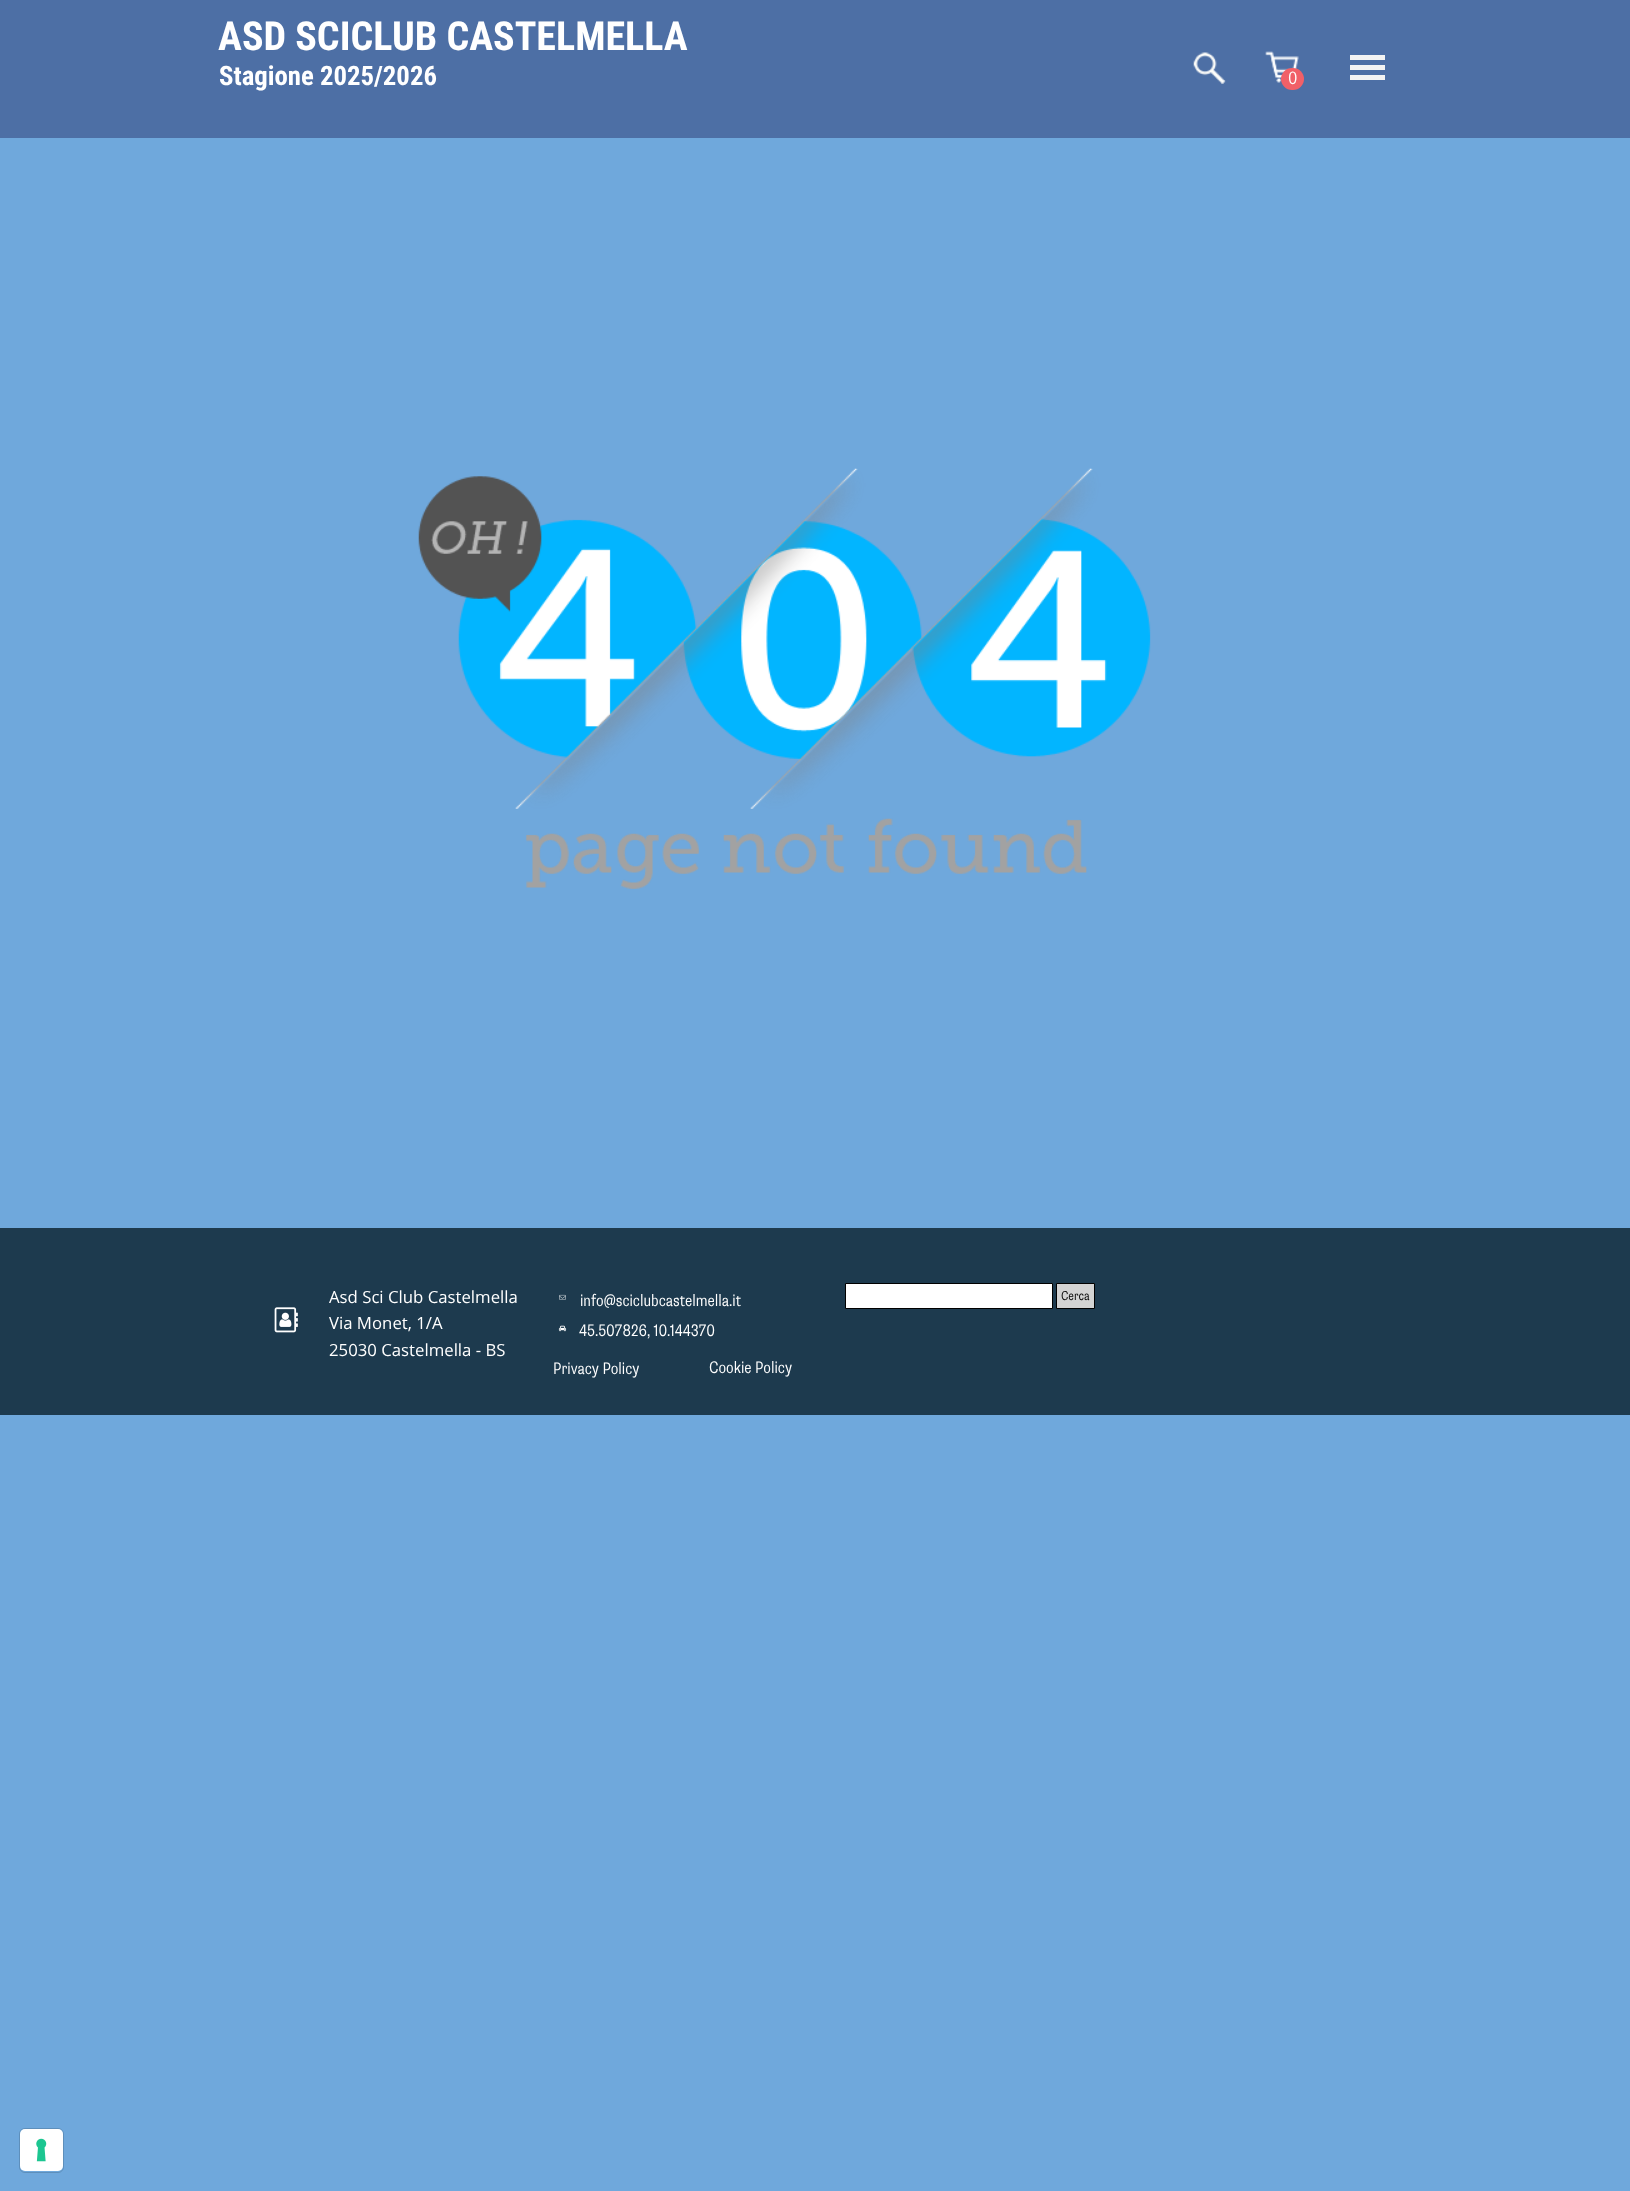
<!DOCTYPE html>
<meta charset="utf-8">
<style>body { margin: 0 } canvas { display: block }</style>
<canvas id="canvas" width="1630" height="2191"></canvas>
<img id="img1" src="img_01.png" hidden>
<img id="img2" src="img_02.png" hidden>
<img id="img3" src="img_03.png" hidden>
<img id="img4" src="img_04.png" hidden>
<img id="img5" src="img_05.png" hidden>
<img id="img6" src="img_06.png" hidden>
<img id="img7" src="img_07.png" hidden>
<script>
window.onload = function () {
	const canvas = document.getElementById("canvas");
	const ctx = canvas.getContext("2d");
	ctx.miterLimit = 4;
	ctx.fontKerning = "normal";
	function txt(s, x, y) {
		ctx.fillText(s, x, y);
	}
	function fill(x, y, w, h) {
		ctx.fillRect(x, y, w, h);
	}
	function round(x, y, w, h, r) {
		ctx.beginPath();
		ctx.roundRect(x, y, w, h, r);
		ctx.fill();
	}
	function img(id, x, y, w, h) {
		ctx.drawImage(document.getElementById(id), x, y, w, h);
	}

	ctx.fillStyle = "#6FA8DC";
	fill(0, 0, 1630, 2191);
	ctx.fillStyle = "#4D6FA5";
	fill(0, 0, 1630, 138);
	img("img1", 1193, 52, 33, 32);
	img("img2", 1265, 51, 34, 32);
	ctx.fillStyle = "#F16068";
	round(1281, 68, 23, 22, 11);
	ctx.fillStyle = "#F3F3F3";
	fill(1350, 55, 35, 5);
	fill(1350, 65, 35, 5);
	fill(1350, 75, 35, 5);
	img("img3", 418, 468, 733, 421);
	ctx.fillStyle = "#1D3A4E";
	fill(0, 1228, 1630, 187);
	img("img4", 559, 1294, 7, 6);
	ctx.fillStyle = "#FFFFFF";
	ctx.beginPath();
	ctx.rect(845.5, 1283.5, 207, 25);
	ctx.fill();
	ctx.strokeStyle = "#000000";
	ctx.stroke();
	ctx.fillStyle = "#D3D3D3";
	ctx.beginPath();
	ctx.rect(1056.5, 1283.5, 38, 25);
	ctx.fill();
	ctx.stroke();
	img("img5", 274, 1307, 24, 26);
	img("img6", 558, 1325, 9, 7);
	ctx.beginPath();
	ctx.roundRect(19.5, 2128.5, 44, 44, 5.5);
	ctx.strokeStyle = "#5E8FBB";
	ctx.stroke();
	ctx.fillStyle = "#FFFFFF";
	round(20, 2129, 43, 42, 5);
	img("img7", 36, 2138, 11, 24);
	ctx.font = "bold 40px Roboto Condensed";
	txt("ASD SCICLUB CASTELMELLA", 218, 50);
	ctx.font = "bold 26.75px Roboto Condensed";
	txt("Stagione 2025/2026", 219, 85);
	ctx.font = "300 18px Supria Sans";
	txt("0", 1288, 84);
	ctx.font = "16.75px Open Sans";
	txt("Asd Sci Club Castelmella", 329, 1303);
	txt("Via Monet, 1/A", 329, 1329);
	txt("25030 Castelmella - BS", 329, 1356);
	ctx.font = "300 16.75px Supria Sans";
	txt("info@sciclubcastelmella.it", 580, 1306);
	ctx.font = "300 13px Supria Sans";
	ctx.fillStyle = "#000000";
	txt("Cerca", 1061, 1300);
	ctx.font = "300 16.75px Supria Sans";
	ctx.fillStyle = "#FFFFFF";
	txt("45.507826, 10.144370", 579, 1336);
	txt("Privacy Policy", 553, 1374);
	txt("Cookie Policy", 709, 1373);
};
</script>
